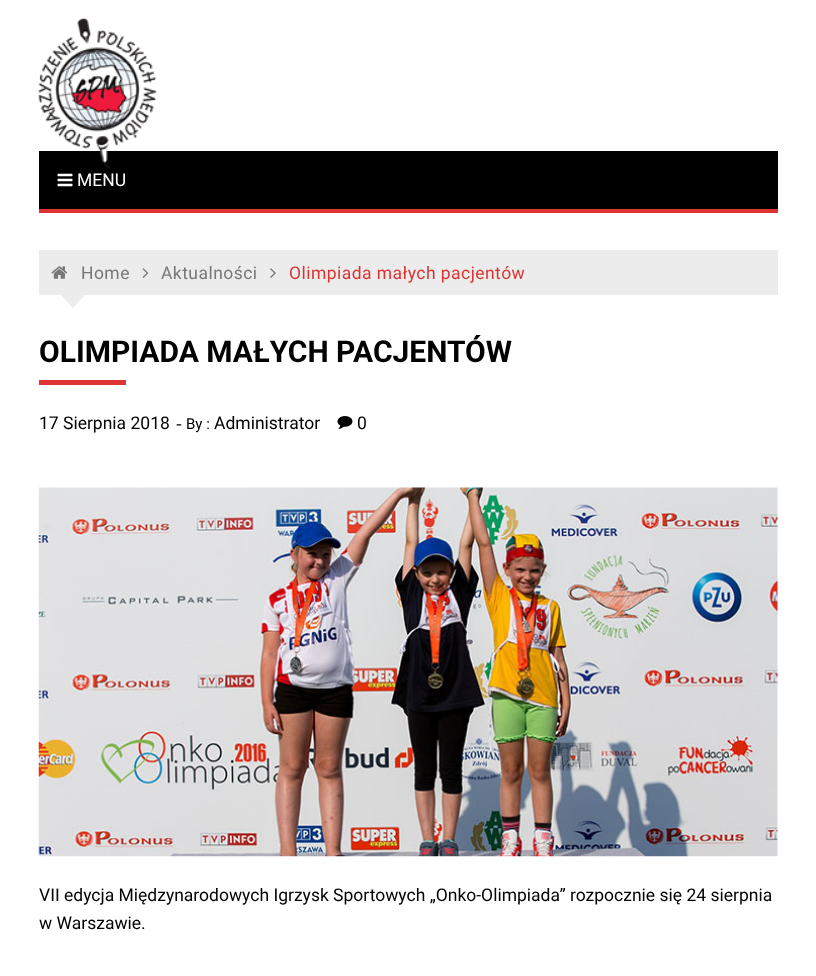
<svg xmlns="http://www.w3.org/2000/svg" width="816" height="976">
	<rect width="100%" height="100%" fill="#FFFFFF" />
	<rect x="39" y="151" width="739" height="58" fill="#000000" />
	<image x="38" y="18" width="119" height="151" href="assets/img1.png" />
	<rect x="39" y="209" width="739" height="4" fill="#DD3333" />
	<image x="57" y="173" width="16" height="14" href="assets/img2.png" />
	<text x="77" y="186" font-family="Roboto" font-size="17.5" fill="#FFFFFF">MENU</text>
	<rect x="39" y="250" width="739" height="45" fill="#ECECEC" />
	<image x="51" y="266" width="17" height="13" href="assets/img3.png" />
	<text x="81" y="279" font-family="Roboto" font-size="17.5" letter-spacing="0.45" fill="#777777">Home</text>
	<image x="142" y="268" width="7" height="10" href="assets/img4.png" />
	<text x="161" y="279" font-family="Roboto" font-size="17.5" letter-spacing="0.45" fill="#777777">Aktualności</text>
	<image x="270" y="268" width="6" height="10" href="assets/img5.png" />
	<text x="289" y="279" font-family="Roboto" font-size="17.5" letter-spacing="0.45" fill="#DD3333">Olimpiada małych pacjentów</text>
	<path d="M58 291.5H88L73 308Z" fill="#ECECEC" />
	<text x="39" y="362" font-family="Roboto" font-size="30" font-weight="700" fill="#010101">OLIMPIADA MAŁYCH PACJENTÓW</text>
	<rect x="39" y="380" width="87" height="5" fill="#DD3333" />
	<text x="39" y="429" font-family="Roboto" font-size="17.5" fill="#010101">17 Sierpnia 2018</text>
	<text x="176" y="429" font-family="Liberation Serif" font-size="17.5" fill="#010101">-</text>
	<text x="186" y="429" font-family="Roboto" font-size="15" fill="#010101">By :</text>
	<text x="214" y="429" font-family="Roboto" font-size="17.5" fill="#010101">Administrator</text>
	<image x="337" y="416" width="16" height="13" href="assets/img6.png" />
	<text x="357" y="429" font-family="Roboto" font-size="17.5" fill="#010101">0</text>
	<image x="38" y="487" width="740" height="370" href="assets/img7.png" />
	<g font-family="Roboto" font-size="17.5" fill="#010101">
		<text x="39" y="901">VII edycja Międzynarodowych Igrzysk Sportowych „Onko-Olimpiada” rozpocznie się 24 sierpnia</text>
		<text x="39" y="929">w Warszawie.</text>
	</g>
</svg>
